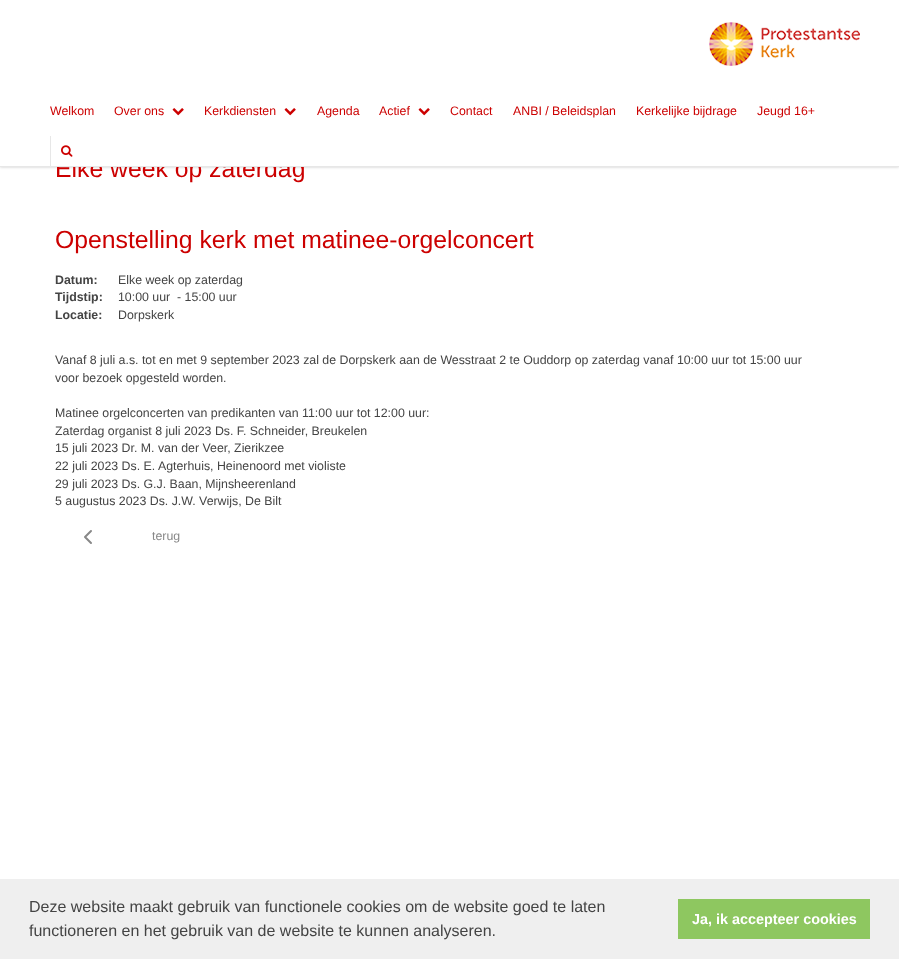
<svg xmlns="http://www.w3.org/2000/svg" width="899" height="959">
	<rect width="100%" height="100%" fill="#FFFFFF" />
	<rect x="0" y="0" width="899" height="167" fill="#000000" fill-opacity="0.22" filter="blur(1.5px)" />
	<text x="55" y="177" font-family="Liberation Sans" font-size="24.75" fill="#CC0000">Elke week op zaterdag</text>
	<rect x="0" y="0" width="899" height="166" fill="#FFFFFF" />
	<rect x="0" y="166" width="899" height="1" fill="#E7E7E7" />
	<image x="709" y="22" width="151" height="44" href="assets/img1.png" />
	<g font-family="Liberation Sans" font-size="12.35" fill="#CC0000">
		<text x="50" y="115">Welkom</text>
		<text x="114" y="115">Over ons</text>
	</g>
	<image x="172" y="108" width="12" height="8" href="assets/img2.png" />
	<text x="204" y="115" font-family="Liberation Sans" font-size="12.35" fill="#CC0000">Kerkdiensten</text>
	<image x="284" y="108" width="12" height="8" href="assets/img2.png" />
	<g font-family="Liberation Sans" font-size="12.35" fill="#CC0000">
		<text x="317" y="115">Agenda</text>
		<text x="379" y="115">Actief</text>
	</g>
	<image x="418" y="108" width="12" height="8" href="assets/img2.png" />
	<g font-family="Liberation Sans" font-size="12.35" fill="#CC0000">
		<text x="450" y="115">Contact</text>
		<text x="513" y="115">ANBI / Beleidsplan</text>
		<text x="636" y="115">Kerkelijke bijdrage</text>
		<text x="757" y="115">Jeugd 16+</text>
	</g>
	<rect x="50" y="136" width="1" height="30" fill="#E7E7E7" />
	<image x="61" y="145" width="12" height="12" href="assets/img3.png" />
	<text x="55" y="248" font-family="Liberation Sans" font-size="24.75" fill="#CC0000">Openstelling kerk met matinee-orgelconcert</text>
	<text x="55" y="284" font-family="Liberation Sans" font-size="12.35" font-weight="700" fill="#444444">Datum:</text>
	<text x="118" y="284" font-family="Liberation Sans" font-size="12.35" fill="#444444">Elke week op zaterdag</text>
	<text x="55" y="301" font-family="Liberation Sans" font-size="12.35" font-weight="700" fill="#444444">Tijdstip:</text>
	<g font-family="Liberation Sans" font-size="12.35" fill="#444444">
		<text x="118" y="301">10:00 uur</text>
		<text x="177" y="301">- 15:00 uur</text>
	</g>
	<text x="55" y="319" font-family="Liberation Sans" font-size="12.35" font-weight="700" fill="#444444">Locatie:</text>
	<g font-family="Liberation Sans" font-size="12.35" fill="#444444">
		<text x="118" y="319">Dorpskerk</text>
		<text x="55" y="364">Vanaf 8 juli a.s. tot en met 9 september 2023 zal de Dorpskerk aan de Wesstraat 2 te Ouddorp op zaterdag vanaf 10:00 uur tot 15:00 uur</text>
		<text x="55" y="382">voor bezoek opgesteld worden.</text>
		<text x="55" y="417">Matinee orgelconcerten van predikanten van 11:00 uur tot 12:00 uur:</text>
		<text x="55" y="435">Zaterdag organist 8 juli 2023 Ds. F. Schneider, Breukelen</text>
		<text x="55" y="452">15 juli 2023 Dr. M. van der Veer, Zierikzee</text>
		<text x="55" y="470">22 juli 2023 Ds. E. Agterhuis, Heinenoord met violiste</text>
		<text x="55" y="488">29 juli 2023 Ds. G.J. Baan, Mijnsheerenland</text>
		<text x="55" y="505">5 augustus 2023 Ds. J.W. Verwijs, De Bilt</text>
	</g>
	<path d="M91 543L85 537L91 531" fill="none" stroke="#888888" stroke-width="2" stroke-linecap="round" stroke-linejoin="round" />
	<text x="152" y="540" font-family="Liberation Sans" font-size="12.35" fill="#888888">terug</text>
	<rect x="0" y="879" width="899" height="80" fill="#EFEFEF" />
	<g font-family="Liberation Sans" font-size="16" fill="#444444">
		<text x="29" y="912">Deze website maakt gebruik van functionele cookies om de website goed te laten</text>
		<text x="29" y="936">functioneren en het gebruik van de website te kunnen analyseren.</text>
	</g>
	<rect x="678" y="899" width="192" height="40" fill="#8EC760" />
	<text x="692" y="924" font-family="Liberation Sans" font-size="14.4" font-weight="700" fill="#FFFFFF">Ja, ik accepteer cookies</text>
</svg>
